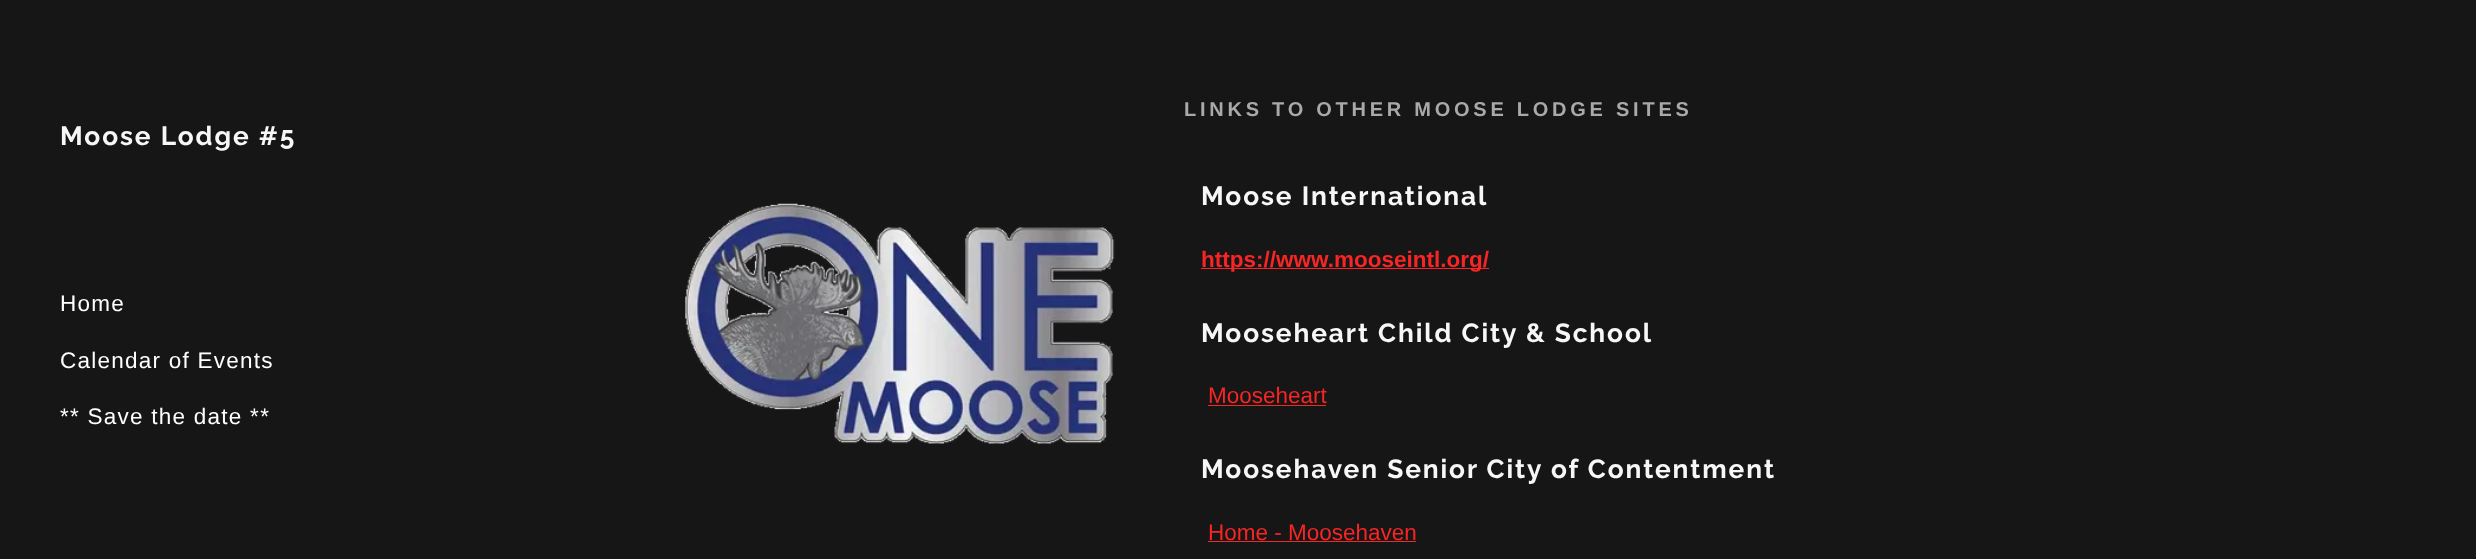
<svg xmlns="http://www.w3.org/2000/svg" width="2476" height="559">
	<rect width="100%" height="100%" fill="#161616" />
	<text x="60" y="145" font-family="Raleway" font-size="26.25" font-weight="700" letter-spacing="1.9" fill="#F7F7F7">Moose Lodge #5</text>
	<g font-family="Liberation Sans" font-size="22.5" letter-spacing="1.25" fill="#FFFFFF">
		<text x="60" y="311">Home</text>
		<text x="60" y="368">Calendar of Events</text>
		<text x="60" y="424">** Save the date **</text>
	</g>
	<text x="1184" y="116" font-family="Liberation Sans" font-size="20" font-weight="700" letter-spacing="3.75" fill="#A9A9A9">LINKS TO OTHER MOOSE LODGE SITES</text>
	<image x="685" y="203" width="430" height="241" href="assets/img1.png" />
	<text x="1201" y="205" font-family="Raleway" font-size="26.25" font-weight="700" letter-spacing="1.9" fill="#F7F7F7">Moose International</text>
	<rect x="1201" y="268" width="288" height="1" fill="#F72525" />
	<text x="1201" y="267" font-family="Liberation Sans" font-size="22.5" font-weight="700" fill="#F72525">https://www.mooseintl.org/</text>
	<text x="1201" y="342" font-family="Raleway" font-size="26.25" font-weight="700" letter-spacing="1.9" fill="#F7F7F7">Mooseheart Child City &amp; School</text>
	<text x="1208" y="403" font-family="Liberation Sans" font-size="22.5" fill="#F72525">Mooseheart</text>
	<rect x="1208" y="405" width="118" height="1" fill="#F72525" />
	<text x="1201" y="478" font-family="Raleway" font-size="26.25" font-weight="700" letter-spacing="1.9" fill="#F7F7F7">Moosehaven Senior City of Contentment</text>
	<text x="1208" y="540" font-family="Liberation Sans" font-size="22.5" fill="#F72525">Home - Moosehaven</text>
	<rect x="1208" y="541" width="208" height="1" fill="#F72525" />
</svg>
